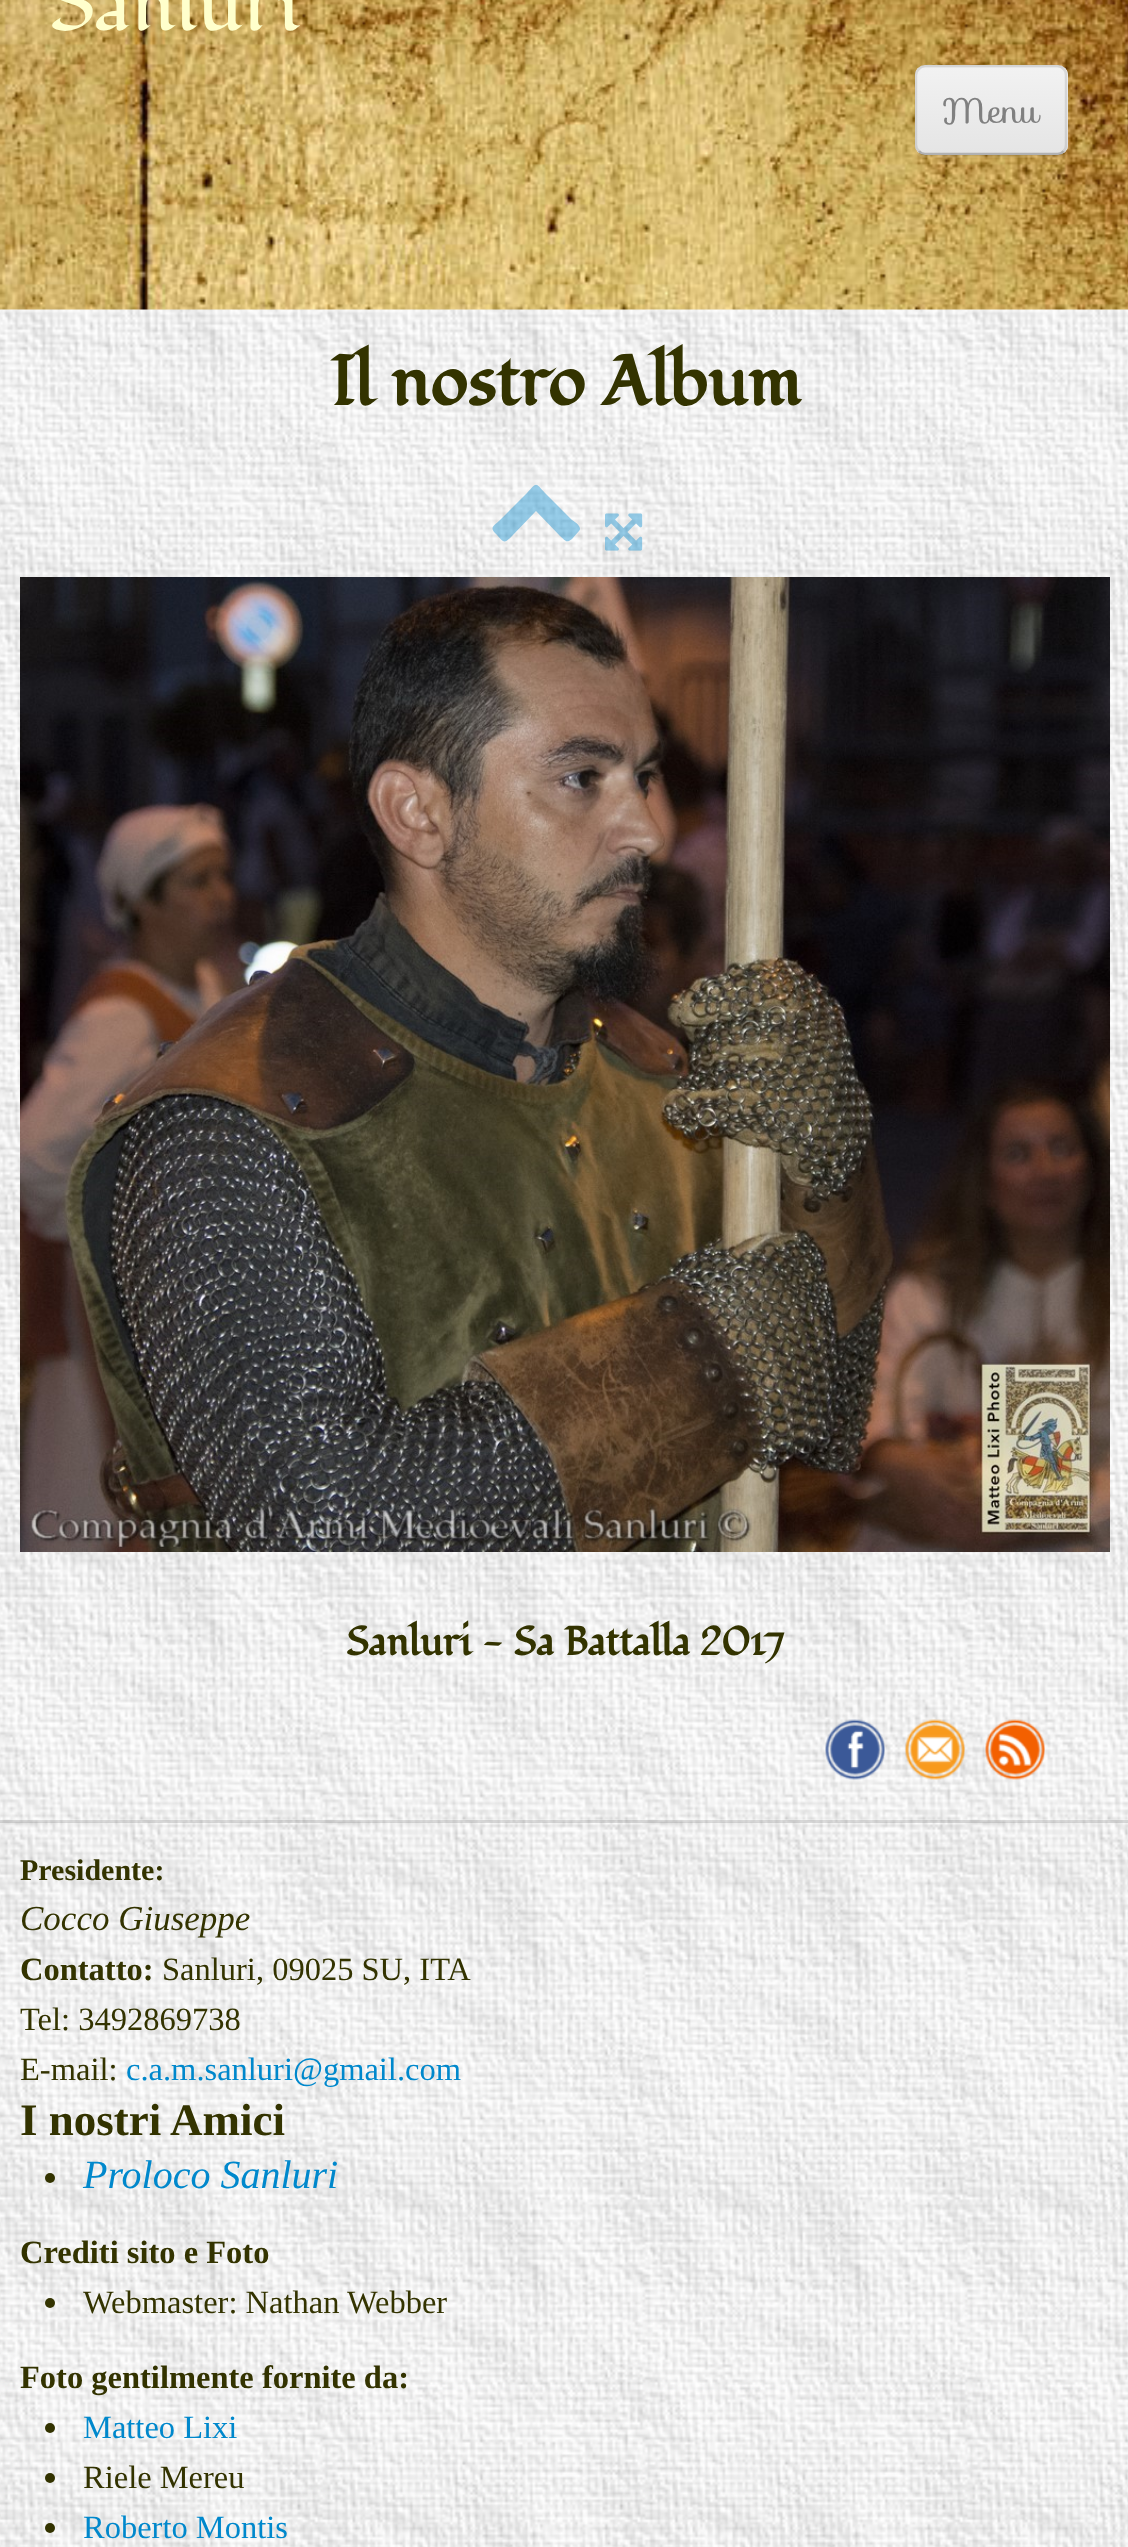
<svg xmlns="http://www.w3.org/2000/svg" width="1128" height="2547">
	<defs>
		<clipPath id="clip1"><rect x="915" y="65" width="153" height="90" rx="10" /></clipPath>
		<linearGradient id="g1" gradientUnits="userSpaceOnUse" x1="991" y1="67" x2="991" y2="153"><stop offset="0" stop-color="#F2F2F2" /><stop offset="1" stop-color="#E5E5E5" /></linearGradient>
	</defs>
	<rect width="100%" height="100%" fill="#FFFFFF" />
	<image x="0" y="309" width="1128" height="2238" href="assets/img1.png" />
	<image x="0" y="0" width="1128" height="310" href="assets/img2.png" />
	<text x="50" y="30" font-family="Fondamento" font-size="80" fill="#FFFFCC">Sanluri</text>
	<path d="M915 145V148C915 154 919 158 925 158H1058C1064 158 1068 154 1068 148V78L1067 75L1068 145C1068 151 1063 155 1058 155H925C919 155 915 151 915 145Z" fill="#FFFFFF" fill-opacity="0.07" />
	<rect x="915" y="65" width="153" height="90" rx="10" fill="#EDEDED" />
	<g clip-path="url(#clip1)">
		<rect x="915" y="68" width="153" height="85" fill="url(#g1)" />
	</g>
	<path d="M1063.5 151C1062 153 1060 154 1057.5 154H925C922.5 154 920.5 153 919 151" fill="none" stroke="#000000" stroke-opacity="0.25" stroke-width="2.5" />
	<path d="M919 151C917 149.5 916 147.5 916 145V75C916 72.5 917 70.5 919 69C920.5 67 922.5 66 925 66H1057.5C1060 66 1062 67 1063.5 69C1065.5 70.5 1066 72.5 1066 75V145C1066 147.5 1065.5 149.5 1063.5 151" fill="none" stroke="#000000" stroke-opacity="0.1" stroke-width="2.5" />
	<text x="942" y="123" font-family="Sofia" font-size="35" fill="#808080">Menu</text>
	<text x="330" y="405" font-family="Fondamento" font-size="70" font-weight="700" fill="#333300">Il nostro Album</text>
	<path d="M579 531L572 539C566 544 565 540 560 536L536 511L512 536C503 545 504 542 495 533C489 527 495 525 500 520L527 493C537 482 535 482 545 493L572 520C574 521 583 527 579 531Z" fill="#0088CC" fill-opacity="0.4" />
	<image x="605" y="513" width="38" height="38" href="assets/img3.png" />
	<image x="20" y="577" width="1090" height="975" href="assets/img4.png" />
	<text x="346" y="1655" font-family="Fondamento" font-size="40" font-weight="700" fill="#333300">Sanluri - Sa Battalla 2017</text>
	<image x="825" y="1719" width="60" height="61" href="assets/img5.png" />
	<image x="905" y="1719" width="60" height="61" href="assets/img6.png" />
	<image x="985" y="1719" width="60" height="61" href="assets/img7.png" />
	<rect x="0" y="1820" width="1128" height="3" fill="#000000" fill-opacity="0.13" />
	<text x="20" y="1880" font-family="Liberation Serif" font-size="30" font-weight="700" fill="#333300">Presidente:</text>
	<text x="20" y="1930" font-family="Liberation Serif" font-size="35" font-style="italic" fill="#333300">Cocco Giuseppe</text>
	<text x="20" y="1980" font-family="Liberation Serif" font-size="32.5" font-weight="700" fill="#333300">Contatto:</text>
	<g font-family="Liberation Serif" font-size="32.5" fill="#333300">
		<text x="162" y="1980">Sanluri, 09025 SU, ITA</text>
		<text x="20" y="2030">Tel: 3492869738</text>
		<text x="20" y="2080">E-mail:</text>
	</g>
	<text x="126" y="2080" font-family="Liberation Serif" font-size="32.5" fill="#0088CC">c.a.m.sanluri@gmail.com</text>
	<text x="20" y="2135" font-family="Liberation Serif" font-size="45" font-weight="700" fill="#333300">I nostri Amici</text>
	<circle cx="50" cy="2178" r="5" fill="#333300" />
	<text x="83" y="2188" font-family="Liberation Serif" font-size="40" font-style="italic" fill="#0088CC">Proloco Sanluri</text>
	<text x="20" y="2263" font-family="Liberation Serif" font-size="32.5" font-weight="700" fill="#333300">Crediti sito e Foto</text>
	<circle cx="50" cy="2303" r="5" fill="#333300" />
	<text x="83" y="2313" font-family="Liberation Serif" font-size="32.5" fill="#333300">Webmaster: Nathan Webber</text>
	<text x="20" y="2388" font-family="Liberation Serif" font-size="32.5" font-weight="700" fill="#333300">Foto gentilmente fornite da:</text>
	<circle cx="50" cy="2428" r="5" fill="#333300" />
	<text x="83" y="2438" font-family="Liberation Serif" font-size="32.5" fill="#0088CC">Matteo Lixi</text>
	<circle cx="50" cy="2478" r="5" fill="#333300" />
	<text x="83" y="2488" font-family="Liberation Serif" font-size="32.5" fill="#333300">Riele Mereu</text>
	<circle cx="50" cy="2528" r="5" fill="#333300" />
	<text x="83" y="2538" font-family="Liberation Serif" font-size="32.5" fill="#0088CC">Roberto Montis</text>
</svg>
